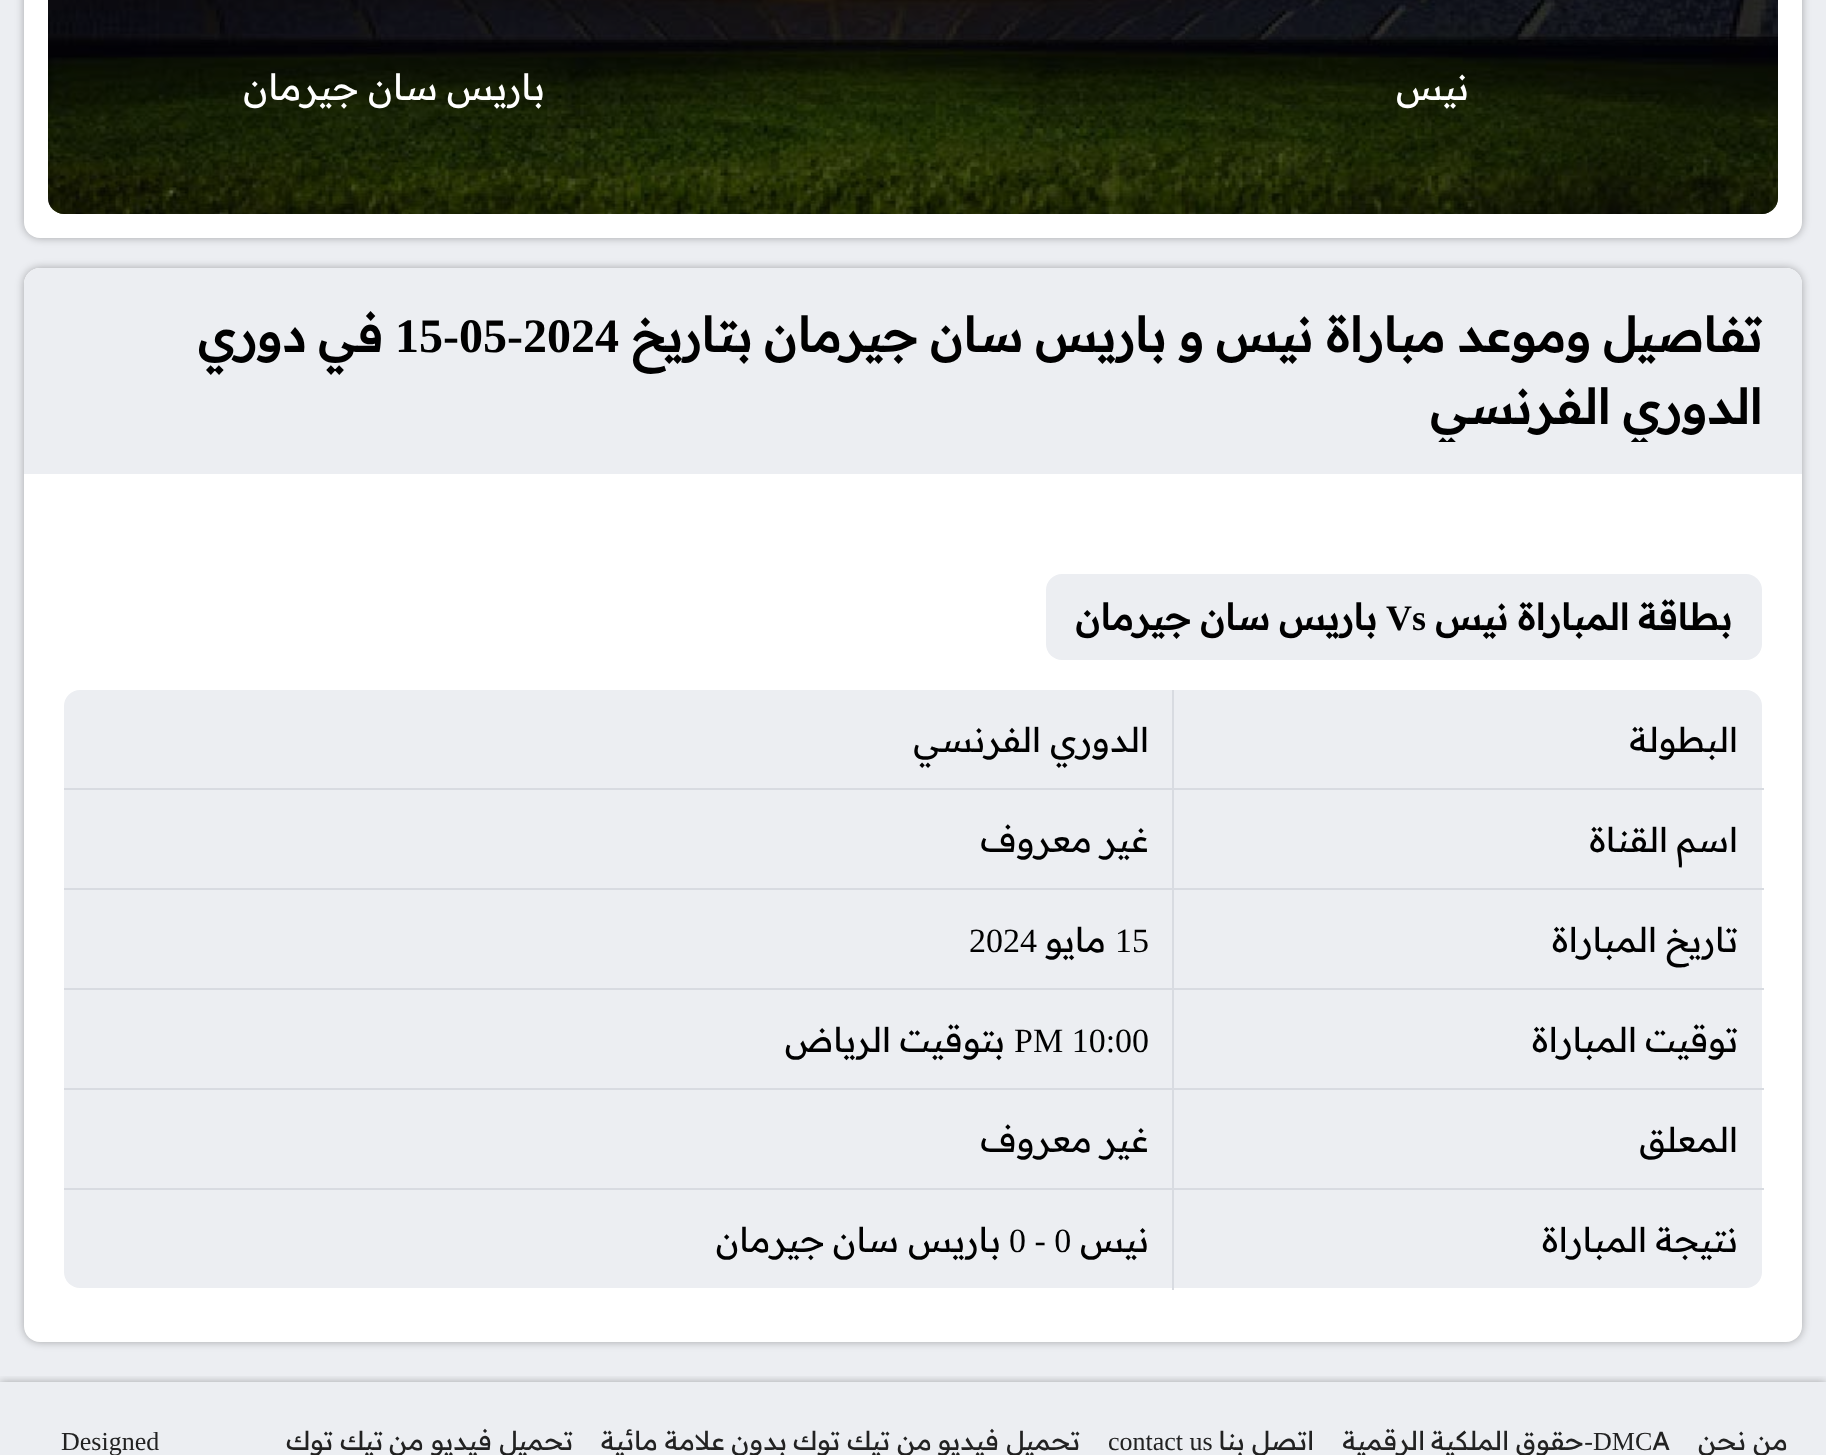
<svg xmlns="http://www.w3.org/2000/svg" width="1826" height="1455">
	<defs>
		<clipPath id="clip1"><rect x="64" y="298" width="1698" height="144" /></clipPath>
		<clipPath id="clip2"><rect x="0" y="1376" width="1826" height="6" /></clipPath>
	</defs>
	<rect width="100%" height="100%" fill="#ECEEF2" />
	<rect x="24" y="-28" width="1778" height="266" rx="16" fill="#000000" fill-opacity="0.3" filter="blur(4px)" />
	<rect x="24" y="-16" width="1778" height="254" rx="16" fill="#FFFFFF" />
	<image x="48" y="0" width="1730" height="214" href="assets/img1.png" />
	<rect x="48" y="-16" width="1730" height="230" rx="16" fill="#000000" fill-opacity="0.59" />
	<g font-family="Readex Pro" font-size="36" direction="rtl" fill="#FFFFFF">
		<text x="1469" y="100">نيس</text>
		<text x="545" y="100">باريس</text>
		<text x="438" y="100">سان</text>
		<text x="359" y="100">جيرمان</text>
	</g>
	<rect x="24" y="268" width="1778" height="1074" rx="16" fill="#000000" fill-opacity="0.3" filter="blur(4px)" />
	<rect x="24" y="268" width="1778" height="1074" rx="16" fill="#FFFFFF" />
	<path d="M40 268H1786C1795 268 1802 275 1802 284V474H24V284C24 275 31 268 40 268Z" fill="#ECEEF2" />
	<g font-family="Readex Pro" font-size="48" font-weight="700" direction="rtl" fill="#000000">
		<text x="1762" y="352">تفاصيل</text>
		<text x="1591" y="352">وموعد</text>
		<text x="1445" y="352">مباراة</text>
		<text x="1313" y="352">نيس</text>
		<text x="1204" y="352">و</text>
		<text x="1166" y="352">باريس</text>
		<text x="1023" y="352">سان</text>
		<text x="918" y="352">جيرمان</text>
		<text x="752" y="352">بتاريخ</text>
	</g>
	<text x="395" y="352" font-family="Liberation Serif" font-size="48" font-weight="700" fill="#000000">15-05-2024</text>
	<g font-family="Readex Pro" font-size="48" font-weight="700" direction="rtl" fill="#000000">
		<text x="383" y="352">في</text>
		<text x="306" y="352">دوري</text>
	</g>
	<g clip-path="url(#clip1)">
		<g font-family="Readex Pro" font-size="48" font-weight="700" direction="rtl" fill="#000000">
			<text x="1762" y="424">الدوري</text>
			<text x="1610" y="424">الفرنسي</text>
		</g>
	</g>
	<rect x="1046" y="574" width="716" height="86" rx="16" fill="#ECEEF2" />
	<g font-family="Readex Pro" font-size="36" font-weight="700" direction="rtl" fill="#000000">
		<text x="1732" y="630">بطاقة</text>
		<text x="1629" y="630">المباراة</text>
		<text x="1508" y="630">نيس</text>
	</g>
	<text x="1386" y="630" font-family="Liberation Serif" font-size="36" font-weight="700" fill="#000000">Vs</text>
	<g font-family="Readex Pro" font-size="36" font-weight="700" direction="rtl" fill="#000000">
		<text x="1377" y="630">باريس</text>
		<text x="1270" y="630">سان</text>
		<text x="1191" y="630">جيرمان</text>
	</g>
	<rect x="64" y="690" width="1698" height="598" rx="16" fill="#ECEEF2" />
	<rect x="64" y="788" width="1700" height="2" fill="#D8DBE1" />
	<g font-family="Readex Pro" font-size="34" direction="rtl" fill="#000000">
		<text x="1738" y="752">البطولة</text>
		<text x="1149" y="752">الدوري</text>
		<text x="1041" y="752">الفرنسي</text>
	</g>
	<rect x="64" y="888" width="1700" height="2" fill="#D8DBE1" />
	<g font-family="Readex Pro" font-size="34" direction="rtl" fill="#000000">
		<text x="1738" y="852">اسم</text>
		<text x="1668" y="852">القناة</text>
		<text x="1149" y="852">غير</text>
		<text x="1092" y="852">معروف</text>
	</g>
	<rect x="64" y="988" width="1700" height="2" fill="#D8DBE1" />
	<g font-family="Readex Pro" font-size="34" direction="rtl" fill="#000000">
		<text x="1738" y="952">تاريخ</text>
		<text x="1657" y="952">المباراة</text>
	</g>
	<text x="1115" y="952" font-family="Liberation Serif" font-size="34" fill="#000000">15</text>
	<text x="1106" y="952" font-family="Readex Pro" font-size="34" direction="rtl" fill="#000000">مايو</text>
	<text x="969" y="952" font-family="Liberation Serif" font-size="34" fill="#000000">2024</text>
	<rect x="64" y="1088" width="1700" height="2" fill="#D8DBE1" />
	<g font-family="Readex Pro" font-size="34" direction="rtl" fill="#000000">
		<text x="1738" y="1052">توقيت</text>
		<text x="1637" y="1052">المباراة</text>
	</g>
	<text x="1014" y="1052" font-family="Liberation Serif" font-size="34" fill="#000000">PM 10:00</text>
	<g font-family="Readex Pro" font-size="34" direction="rtl" fill="#000000">
		<text x="1005" y="1052">بتوقيت</text>
		<text x="891" y="1052">الرياض</text>
	</g>
	<rect x="64" y="1188" width="1700" height="2" fill="#D8DBE1" />
	<g font-family="Readex Pro" font-size="34" direction="rtl" fill="#000000">
		<text x="1738" y="1152">المعلق</text>
		<text x="1149" y="1152">غير</text>
		<text x="1092" y="1152">معروف</text>
		<text x="1738" y="1252">نتيجة</text>
		<text x="1647" y="1252">المباراة</text>
	</g>
	<rect x="1172" y="690" width="2" height="600" fill="#D8DBE1" />
	<text x="1149" y="1252" font-family="Readex Pro" font-size="34" direction="rtl" fill="#000000">نيس</text>
	<text x="1009" y="1252" font-family="Liberation Serif" font-size="34" fill="#000000">0 - 0</text>
	<g font-family="Readex Pro" font-size="34" direction="rtl" fill="#000000">
		<text x="1001" y="1252">باريس</text>
		<text x="899" y="1252">سان</text>
		<text x="825" y="1252">جيرمان</text>
	</g>
	<g clip-path="url(#clip2)">
		<rect x="0" y="1382" width="1826" height="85" fill="#000000" fill-opacity="0.3" filter="blur(4px)" />
	</g>
	<g font-family="Readex Pro" font-size="26" direction="rtl" fill="#222222">
		<text x="1788" y="1450">من</text>
		<text x="1746" y="1450">نحن</text>
	</g>
	<text x="1652" y="1450" font-family="Readex Pro" font-size="26" fill="#222222">A</text>
	<text x="1593" y="1450" font-family="Liberation Serif" font-size="26" fill="#222222">DMC</text>
	<text x="1593" y="1450" font-family="Liberation Serif" font-size="26" direction="rtl" fill="#222222">-</text>
	<g font-family="Readex Pro" font-size="26" direction="rtl" fill="#222222">
		<text x="1584" y="1450">حقوق</text>
		<text x="1509" y="1450">الملكية</text>
		<text x="1425" y="1450">الرقمية</text>
		<text x="1314" y="1450">اتصل</text>
		<text x="1245" y="1450">بنا</text>
	</g>
	<text x="1108" y="1450" font-family="Liberation Serif" font-size="26" fill="#222222">contact us</text>
	<g font-family="Readex Pro" font-size="26" direction="rtl" fill="#222222">
		<text x="1080" y="1450">تحميل</text>
		<text x="999" y="1450">فيديو</text>
		<text x="932" y="1450">من</text>
		<text x="890" y="1450">تيك</text>
		<text x="840" y="1450">توك</text>
		<text x="787" y="1450">بدون</text>
		<text x="725" y="1450">علامة</text>
		<text x="658" y="1450">مائية</text>
		<text x="573" y="1450">تحميل</text>
		<text x="492" y="1450">فيديو</text>
		<text x="424" y="1450">من</text>
		<text x="383" y="1450">تيك</text>
		<text x="333" y="1450">توك</text>
	</g>
	<text x="61" y="1450" font-family="Liberation Serif" font-size="26" fill="#222222">Designed</text>
</svg>
